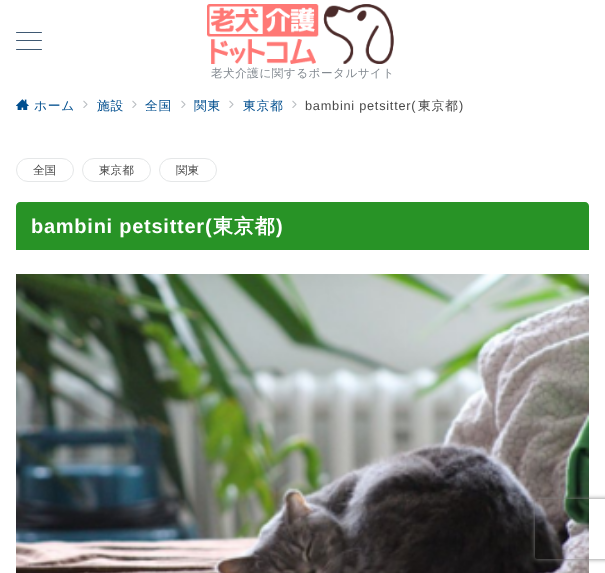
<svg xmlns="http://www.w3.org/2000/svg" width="605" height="573">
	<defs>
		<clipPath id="clip1"><path d="M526 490H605V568H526ZM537 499H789C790 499 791 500 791 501V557C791 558 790 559 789 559H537C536 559 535 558 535 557V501C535 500 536 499 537 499Z" clip-rule="evenodd" /></clipPath>
	</defs>
	<rect width="100%" height="100%" fill="#FFFFFF" />
	<rect x="16" y="32" width="26" height="1" rx="0.5" fill="#3F5973" />
	<rect x="16" y="40" width="26" height="1" rx="0.5" fill="#3F5973" />
	<rect x="16" y="49" width="26" height="1" rx="0.5" fill="#3F5973" />
	<image x="207" y="4" width="187" height="60" href="assets/img1.png" />
	<text x="211" y="77" font-family="WenQuanYi Zen Hei" font-size="11.6" font-weight="500" letter-spacing="0.5" fill="#828990">老犬介護に関するポータルサイト</text>
	<image x="16" y="99" width="13" height="11" href="assets/img2.png" />
	<text x="34" y="110" font-family="WenQuanYi Zen Hei" font-size="12.75" font-weight="500" letter-spacing="0.75" fill="#004E8E">ホーム</text>
	<image x="83" y="100" width="5" height="8" href="assets/img3.png" />
	<text x="97" y="110" font-family="WenQuanYi Zen Hei" font-size="12.75" font-weight="500" letter-spacing="0.75" fill="#004E8E">施設</text>
	<image x="132" y="100" width="5" height="8" href="assets/img3.png" />
	<text x="145" y="110" font-family="WenQuanYi Zen Hei" font-size="12.75" font-weight="500" letter-spacing="0.75" fill="#004E8E">全国</text>
	<image x="181" y="100" width="5" height="8" href="assets/img3.png" />
	<text x="194" y="110" font-family="WenQuanYi Zen Hei" font-size="12.75" font-weight="500" letter-spacing="0.75" fill="#004E8E">関東</text>
	<image x="229" y="100" width="5" height="8" href="assets/img3.png" />
	<text x="243" y="110" font-family="WenQuanYi Zen Hei" font-size="12.75" font-weight="500" letter-spacing="0.75" fill="#004E8E">東京都</text>
	<image x="292" y="100" width="5" height="8" href="assets/img3.png" />
	<text x="305" y="110" font-family="Liberation Sans" font-size="12.75" letter-spacing="0.75" fill="#484848">bambini petsitter(</text>
	<text x="418" y="110" font-family="WenQuanYi Zen Hei" font-size="12.75" font-weight="500" letter-spacing="0.75" fill="#484848">東京都</text>
	<text x="459" y="110" font-family="Liberation Sans" font-size="12.75" letter-spacing="0.75" fill="#484848">)</text>
	<rect x="16.5" y="158.5" width="57" height="23" rx="11.5" fill="none" stroke="#E5E7E8" />
	<text x="33" y="174" font-family="WenQuanYi Zen Hei" font-size="11.6" font-weight="500" fill="#484848">全国</text>
	<rect x="82.5" y="158.5" width="68" height="23" rx="11.5" fill="none" stroke="#E5E7E8" />
	<text x="99" y="174" font-family="WenQuanYi Zen Hei" font-size="11.6" font-weight="500" fill="#484848">東京都</text>
	<rect x="159.5" y="158.5" width="57" height="23" rx="11.5" fill="none" stroke="#E5E7E8" />
	<text x="176" y="174" font-family="WenQuanYi Zen Hei" font-size="11.6" font-weight="500" fill="#484848">関東</text>
	<path d="M20 202H585C587 202 589 204 589 206V250H16V206C16 204 18 202 20 202Z" fill="#289326" />
	<text x="31" y="233" font-family="Liberation Sans" font-size="20" font-weight="700" letter-spacing="0.75" fill="#FFFFFF">bambini petsitter(</text>
	<text x="213" y="233" font-family="WenQuanYi Zen Hei" font-size="20" font-weight="700" letter-spacing="0.75" fill="#FFFFFF">東京都</text>
	<text x="276" y="233" font-family="Liberation Sans" font-size="20" font-weight="700" letter-spacing="0.75" fill="#FFFFFF">)</text>
	<image x="16" y="274" width="573" height="299" href="assets/img4.png" />
	<g clip-path="url(#clip1)">
		<rect x="535" y="499" width="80" height="60" rx="2" fill="#808080" filter="blur(2.5px)" />
	</g>
</svg>
